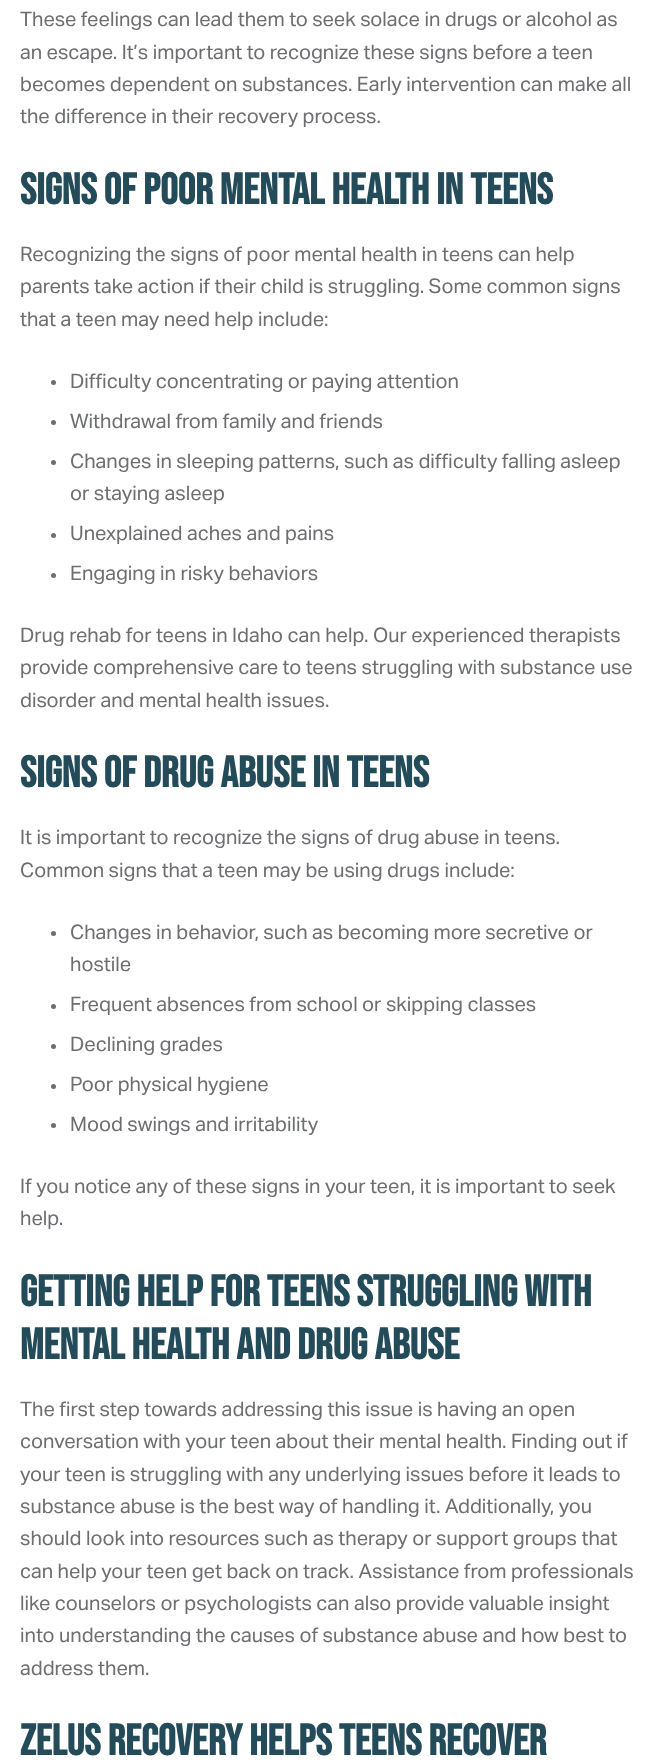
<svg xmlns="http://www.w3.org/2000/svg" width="657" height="1763">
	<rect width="100%" height="100%" fill="#FFFFFF" />
	<g font-family="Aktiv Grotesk" font-size="20" fill="#6D6E71">
		<text x="20" y="26">These feelings can lead them to seek solace in drugs or alcohol as</text>
		<text x="20" y="59">an escape. It’s important to recognize these signs before a teen</text>
		<text x="20" y="91">becomes dependent on substances. Early intervention can make all</text>
		<text x="20" y="123">the difference in their recovery process.</text>
	</g>
	<text x="20" y="204" font-family="Bebas Neue" font-size="43.75" font-weight="700" fill="#244B5A">Signs of Poor Mental Health in Teens</text>
	<g font-family="Aktiv Grotesk" font-size="20" fill="#6D6E71">
		<text x="20" y="261">Recognizing the signs of poor mental health in teens can help</text>
		<text x="20" y="293">parents take action if their child is struggling. Some common signs</text>
		<text x="20" y="326">that a teen may need help include:</text>
	</g>
	<circle cx="53.5" cy="382.5" r="2.5" fill="#6D6E71" />
	<text x="70" y="388" font-family="Aktiv Grotesk" font-size="20" fill="#6D6E71">Difficulty concentrating or paying attention</text>
	<circle cx="53.5" cy="422.5" r="2.5" fill="#6D6E71" />
	<text x="70" y="428" font-family="Aktiv Grotesk" font-size="20" fill="#6D6E71">Withdrawal from family and friends</text>
	<circle cx="53.5" cy="462.5" r="2.5" fill="#6D6E71" />
	<g font-family="Aktiv Grotesk" font-size="20" fill="#6D6E71">
		<text x="70" y="468">Changes in sleeping patterns, such as difficulty falling asleep</text>
		<text x="70" y="500">or staying asleep</text>
	</g>
	<circle cx="53.5" cy="535.5" r="2.5" fill="#6D6E71" />
	<text x="70" y="540" font-family="Aktiv Grotesk" font-size="20" fill="#6D6E71">Unexplained aches and pains</text>
	<circle cx="53.5" cy="575.5" r="2.5" fill="#6D6E71" />
	<g font-family="Aktiv Grotesk" font-size="20" fill="#6D6E71">
		<text x="70" y="580">Engaging in risky behaviors</text>
		<text x="20" y="642">Drug rehab for teens in Idaho can help. Our experienced therapists</text>
		<text x="20" y="674">provide comprehensive care to teens struggling with substance use</text>
		<text x="20" y="707">disorder and mental health issues.</text>
	</g>
	<text x="20" y="787" font-family="Bebas Neue" font-size="43.75" font-weight="700" fill="#244B5A">Signs of Drug Abuse in Teens</text>
	<g font-family="Aktiv Grotesk" font-size="20" fill="#6D6E71">
		<text x="20" y="844">It is important to recognize the signs of drug abuse in teens.</text>
		<text x="20" y="877">Common signs that a teen may be using drugs include:</text>
	</g>
	<circle cx="53.5" cy="933.5" r="2.5" fill="#6D6E71" />
	<g font-family="Aktiv Grotesk" font-size="20" fill="#6D6E71">
		<text x="70" y="939">Changes in behavior, such as becoming more secretive or</text>
		<text x="70" y="971">hostile</text>
	</g>
	<circle cx="53.5" cy="1006.5" r="2.5" fill="#6D6E71" />
	<text x="70" y="1011" font-family="Aktiv Grotesk" font-size="20" fill="#6D6E71">Frequent absences from school or skipping classes</text>
	<circle cx="53.5" cy="1046.5" r="2.5" fill="#6D6E71" />
	<text x="70" y="1051" font-family="Aktiv Grotesk" font-size="20" fill="#6D6E71">Declining grades</text>
	<circle cx="53.5" cy="1086.5" r="2.5" fill="#6D6E71" />
	<text x="70" y="1091" font-family="Aktiv Grotesk" font-size="20" fill="#6D6E71">Poor physical hygiene</text>
	<circle cx="53.5" cy="1125.5" r="2.5" fill="#6D6E71" />
	<g font-family="Aktiv Grotesk" font-size="20" fill="#6D6E71">
		<text x="70" y="1131">Mood swings and irritability</text>
		<text x="20" y="1193">If you notice any of these signs in your teen, it is important to seek</text>
		<text x="20" y="1225">help.</text>
	</g>
	<g font-family="Bebas Neue" font-size="43.75" font-weight="700" fill="#244B5A">
		<text x="20" y="1306">Getting Help for Teens Struggling with</text>
		<text x="20" y="1359">Mental Health and Drug Abuse</text>
	</g>
	<g font-family="Aktiv Grotesk" font-size="20" fill="#6D6E71">
		<text x="20" y="1416">The first step towards addressing this issue is having an open</text>
		<text x="20" y="1448">conversation with your teen about their mental health. Finding out if</text>
		<text x="20" y="1481">your teen is struggling with any underlying issues before it leads to</text>
		<text x="20" y="1513">substance abuse is the best way of handling it. Additionally, you</text>
		<text x="20" y="1545">should look into resources such as therapy or support groups that</text>
		<text x="20" y="1578">can help your teen get back on track. Assistance from professionals</text>
		<text x="20" y="1610">like counselors or psychologists can also provide valuable insight</text>
		<text x="20" y="1642">into understanding the causes of substance abuse and how best to</text>
		<text x="20" y="1675">address them.</text>
	</g>
	<text x="20" y="1755" font-family="Bebas Neue" font-size="43.75" font-weight="700" fill="#244B5A">Zelus Recovery Helps Teens Recover</text>
</svg>
